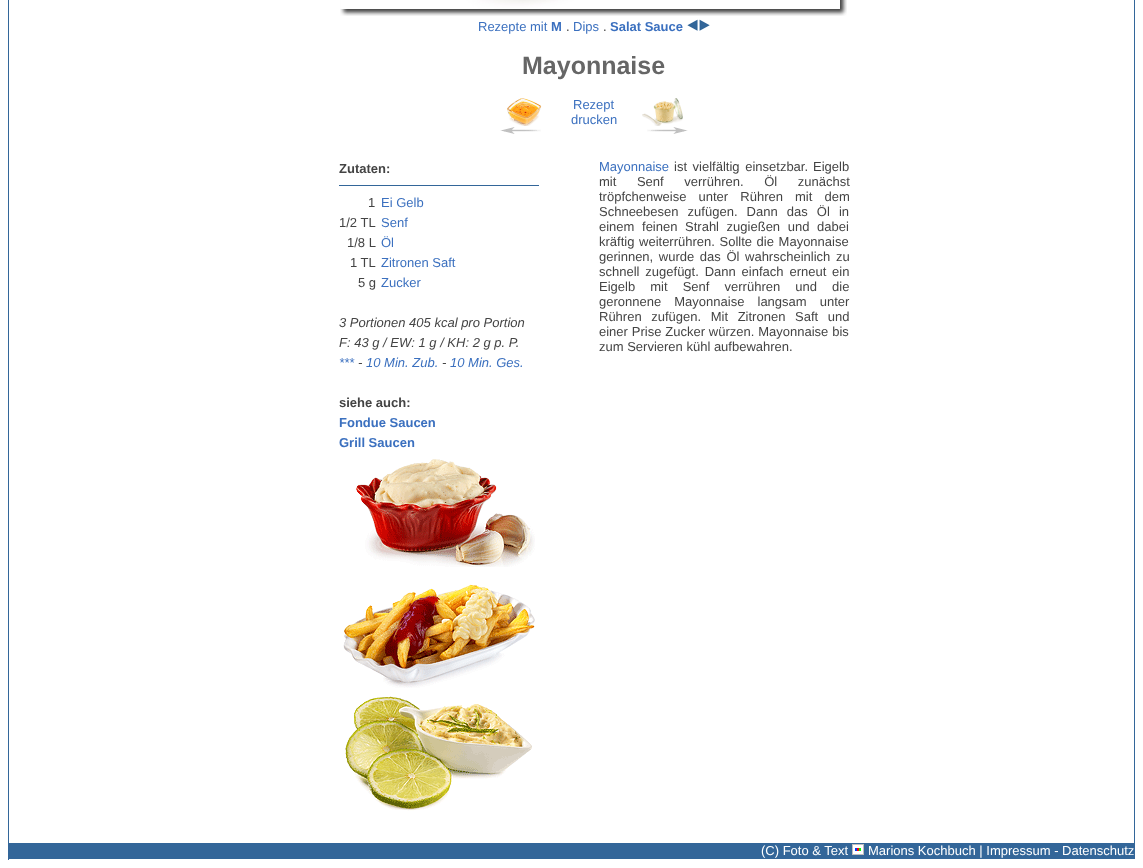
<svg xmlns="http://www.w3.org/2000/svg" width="1143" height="868">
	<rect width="100%" height="100%" fill="#FFFFFF" />
	<rect x="1134" y="0" width="1" height="860" fill="#336699" />
	<rect x="1134" y="859" width="1" height="1" fill="#FFFFFF" />
	<rect x="8" y="0" width="1" height="860" fill="#336699" />
	<image x="340" y="0" width="507" height="16" href="assets/img1.png" />
	<text x="478" y="31" font-family="Liberation Sans" font-size="13" fill="#3B70BF">Rezepte mit</text>
	<text x="551" y="31" font-family="Liberation Sans" font-size="13" font-weight="700" fill="#3B70BF">M</text>
	<text x="566" y="31" font-family="Liberation Sans" font-size="13" fill="#444444">.</text>
	<text x="573" y="31" font-family="Liberation Sans" font-size="13" fill="#3B70BF">Dips</text>
	<text x="603" y="31" font-family="Liberation Sans" font-size="13" fill="#444444">.</text>
	<text x="610" y="31" font-family="Liberation Sans" font-size="13" font-weight="700" fill="#3B70BF">Salat Sauce</text>
	<image x="687" y="19" width="23" height="12" href="assets/img2.png" />
	<text x="522" y="74" font-family="Liberation Sans" font-size="25" font-weight="700" fill="#666666">Mayonnaise</text>
	<image x="507" y="98" width="35" height="28" href="assets/img3.png" />
	<image x="500" y="127" width="41" height="7" href="assets/img4.png" />
	<g font-family="Liberation Sans" font-size="13" fill="#3B70BF">
		<text x="573" y="109">Rezept</text>
		<text x="571" y="124">drucken</text>
	</g>
	<image x="642" y="98" width="41" height="28" href="assets/img5.png" />
	<image x="647" y="127" width="41" height="7" href="assets/img6.png" />
	<text x="339" y="173" font-family="Liberation Sans" font-size="13" font-weight="700" fill="#444444">Zutaten:</text>
	<rect x="339" y="185" width="200" height="1" fill="#336699" />
	<g font-family="Liberation Sans" font-size="13" fill="#444444">
		<text x="368" y="207">1</text>
		<text x="339" y="227">1/2 TL</text>
		<text x="347" y="247">1/8 L</text>
		<text x="350" y="267">1 TL</text>
		<text x="358" y="287">5 g</text>
	</g>
	<g font-family="Liberation Sans" font-size="13" fill="#3B70BF">
		<text x="381" y="207">Ei Gelb</text>
		<text x="381" y="227">Senf</text>
		<text x="381" y="247">Öl</text>
		<text x="381" y="267">Zitronen Saft</text>
		<text x="381" y="287">Zucker</text>
	</g>
	<g font-family="Liberation Sans" font-size="13" font-style="italic" fill="#444444">
		<text x="339" y="327">3 Portionen 405 kcal pro Portion</text>
		<text x="339" y="347">F: 43 g / EW: 1 g / KH: 2 g p. P.</text>
	</g>
	<g font-family="Liberation Sans" font-size="13" font-style="italic" fill="#3B70BF">
		<text x="339" y="367">***</text>
		<text x="366" y="367">10 Min. Zub.</text>
		<text x="450" y="367">10 Min. Ges.</text>
	</g>
	<g font-family="Liberation Sans" font-size="13" font-style="italic" fill="#444444">
		<text x="358" y="367">-</text>
		<text x="442" y="367">-</text>
	</g>
	<text x="339" y="407" font-family="Liberation Sans" font-size="13" font-weight="700" fill="#444444">siehe auch:</text>
	<g font-family="Liberation Sans" font-size="13" font-weight="700" fill="#3B70BF">
		<text x="339" y="427">Fondue Saucen</text>
		<text x="339" y="447">Grill Saucen</text>
	</g>
	<image x="356" y="459" width="179" height="108" href="assets/img7.png" />
	<image x="343" y="584" width="192" height="104" href="assets/img8.png" />
	<image x="345" y="696" width="187" height="115" href="assets/img9.png" />
	<text x="599" y="171" font-family="Liberation Sans" font-size="13" fill="#3B70BF">Mayonnaise</text>
	<g font-family="Liberation Sans" font-size="13" fill="#444444">
		<text x="674" y="171" word-spacing="2">ist vielfältig einsetzbar.</text>
		<text x="813" y="171">Eigelb</text>
		<text x="599" y="186" word-spacing="17">mit Senf verrühren. Öl zunächst</text>
		<text x="599" y="201" word-spacing="8.5">tröpfchenweise unter Rühren mit dem</text>
		<text x="599" y="216" word-spacing="5.5">Schneebesen zufügen. Dann das Öl in</text>
		<text x="599" y="231" word-spacing="4">einem feinen Strahl zugießen und dabei</text>
		<text x="599" y="246" word-spacing="1">kräftig weiterrühren. Sollte die Mayonnaise</text>
		<text x="599" y="261" word-spacing="2">gerinnen, wurde das Öl wahrscheinlich zu</text>
		<text x="599" y="276" word-spacing="2.25">schnell zugefügt. Dann einfach erneut ein</text>
		<text x="599" y="291" word-spacing="11.5">Eigelb mit Senf verrühren und die</text>
		<text x="599" y="306" word-spacing="9.5">geronnene Mayonnaise langsam unter</text>
		<text x="599" y="321" word-spacing="6">Rühren zufügen. Mit Zitronen Saft und</text>
		<text x="599" y="336" word-spacing="0.25">einer Prise Zucker würzen. Mayonnaise bis</text>
		<text x="599" y="351">zum Servieren kühl aufbewahren.</text>
	</g>
	<rect x="9" y="843" width="1125" height="16" fill="#336699" />
	<text x="761" y="855" font-family="Liberation Sans" font-size="13" fill="#FFFFFF">(C) Foto &amp; Text</text>
	<image x="852" y="844" width="12" height="11" href="assets/img10.png" />
	<text x="868" y="855" font-family="Liberation Sans" font-size="13" fill="#FFFFFF">Marions Kochbuch | Impressum - Datenschutz</text>
</svg>
